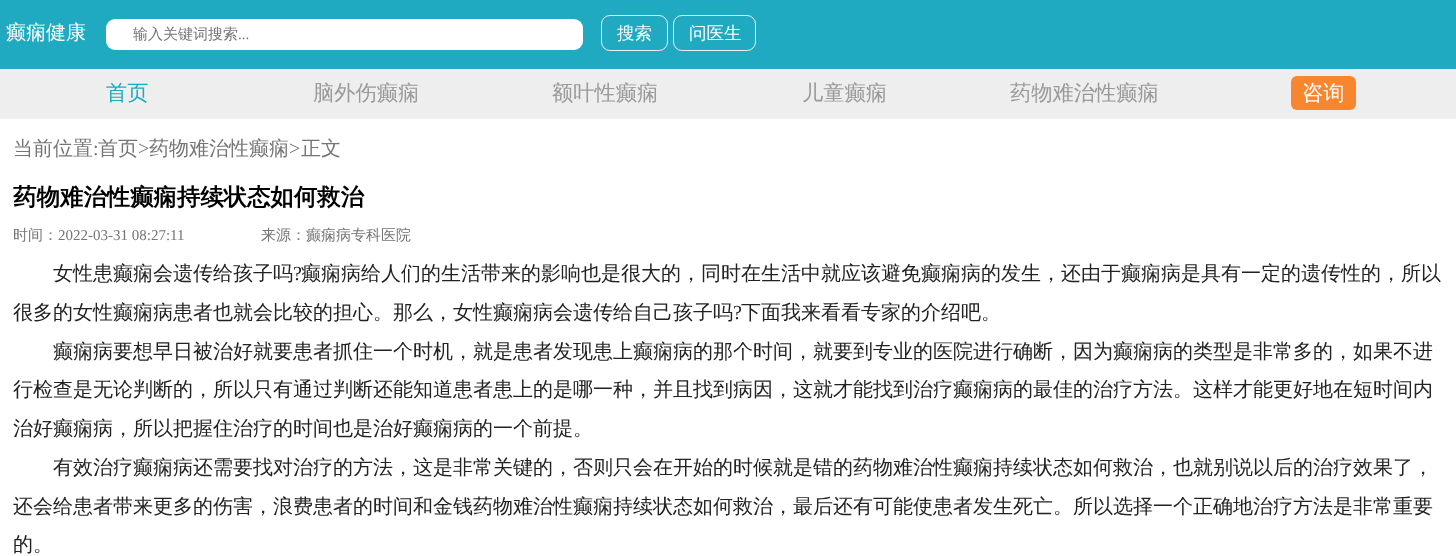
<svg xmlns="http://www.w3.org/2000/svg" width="1456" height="556">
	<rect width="100%" height="100%" fill="#FFFFFF" />
	<rect x="0" y="0" width="1456" height="69" fill="#1FAAC1" />
	<text x="6" y="39" font-family="WenQuanYi Zen Hei" font-size="20" font-weight="500" fill="#FFFFFF">癫痫健康</text>
	<rect x="106" y="19" width="477" height="31" rx="9" fill="#FFFFFF" />
	<text x="133" y="39" font-family="WenQuanYi Zen Hei" font-size="15" font-weight="500" fill="#757575">输入关键词搜索</text>
	<text x="238" y="39" font-family="Liberation Serif" font-size="15" fill="#757575">...</text>
	<rect x="601.5" y="15.5" width="66" height="35" rx="8.5" fill="none" stroke="#EEEEEE" />
	<text x="617" y="39" font-family="WenQuanYi Zen Hei" font-size="17.5" font-weight="500" fill="#FFFFFF">搜索</text>
	<rect x="673.5" y="15.5" width="82" height="35" rx="8.5" fill="none" stroke="#EEEEEE" />
	<text x="689" y="39" font-family="WenQuanYi Zen Hei" font-size="17.5" font-weight="500" fill="#FFFFFF">问医生</text>
	<rect x="0" y="69" width="1456" height="50" fill="#EEEEEE" />
	<text x="106" y="100" font-family="WenQuanYi Zen Hei" font-size="21.25" font-weight="500" fill="#1FAAC1">首页</text>
	<g font-family="WenQuanYi Zen Hei" font-size="21.25" font-weight="500" fill="#999999">
		<text x="313" y="100">脑外伤癫痫</text>
		<text x="552" y="100">额叶性癫痫</text>
		<text x="802" y="100">儿童癫痫</text>
		<text x="1010" y="100">药物难治性癫痫</text>
	</g>
	<rect x="1291" y="76" width="65" height="34" rx="6" fill="#F8862E" />
	<text x="1302" y="100" font-family="WenQuanYi Zen Hei" font-size="21.25" font-weight="500" fill="#FFFFFF">咨询</text>
	<text x="13" y="155" font-family="WenQuanYi Zen Hei" font-size="20" font-weight="500" fill="#757575">当前位置</text>
	<text x="93" y="155" font-family="Liberation Serif" font-size="20" fill="#757575">:</text>
	<text x="98" y="155" font-family="WenQuanYi Zen Hei" font-size="20" font-weight="500" fill="#757575">首页</text>
	<text x="138" y="155" font-family="Liberation Serif" font-size="20" fill="#757575">&gt;</text>
	<text x="149" y="155" font-family="WenQuanYi Zen Hei" font-size="20" font-weight="500" fill="#757575">药物难治性癫痫</text>
	<text x="289" y="155" font-family="Liberation Serif" font-size="20" fill="#757575">&gt;</text>
	<text x="301" y="155" font-family="WenQuanYi Zen Hei" font-size="20" font-weight="500" fill="#757575">正文</text>
	<text x="13" y="205" font-family="WenQuanYi Zen Hei" font-size="23.4" font-weight="700" fill="#000000">药物难治性癫痫持续状态如何救治</text>
	<text x="13" y="240" font-family="WenQuanYi Zen Hei" font-size="15" font-weight="500" fill="#757575">时间：</text>
	<text x="58" y="240" font-family="Liberation Serif" font-size="15" fill="#757575">2022-03-31 08:27:11</text>
	<text x="261" y="240" font-family="WenQuanYi Zen Hei" font-size="15" font-weight="500" fill="#757575">来源：癫痫病专科医院</text>
	<text x="53" y="280" font-family="WenQuanYi Zen Hei" font-size="20" font-weight="500" fill="#222222">女性患癫痫会遗传给孩子吗</text>
	<text x="293" y="280" font-family="Liberation Serif" font-size="20" fill="#222222">?</text>
	<g font-family="WenQuanYi Zen Hei" font-size="20" font-weight="500" fill="#222222">
		<text x="301" y="280">癫痫病给人们的生活带来的影响也是很大的，同时在生活中就应该避免癫痫病的发生，还由于癫痫病是具有一定的遗传性的，所以</text>
		<text x="13" y="319">很多的女性癫痫病患者也就会比较的担心。那么，女性癫痫病会遗传给自己孩子吗</text>
	</g>
	<text x="733" y="319" font-family="Liberation Serif" font-size="20" fill="#222222">?</text>
	<g font-family="WenQuanYi Zen Hei" font-size="20" font-weight="500" fill="#222222">
		<text x="741" y="319">下面我来看看专家的介绍吧。</text>
		<text x="53" y="358">癫痫病要想早日被治好就要患者抓住一个时机，就是患者发现患上癫痫病的那个时间，就要到专业的医院进行确断，因为癫痫病的类型是非常多的，如果不进</text>
		<text x="13" y="396">行检查是无论判断的，所以只有通过判断还能知道患者患上的是哪一种，并且找到病因，这就才能找到治疗癫痫病的最佳的治疗方法。这样才能更好地在短时间内</text>
		<text x="13" y="435">治好癫痫病，所以把握住治疗的时间也是治好癫痫病的一个前提。</text>
		<text x="53" y="474">有效治疗癫痫病还需要找对治疗的方法，这是非常关键的，否则只会在开始的时候就是错的药物难治性癫痫持续状态如何救治，也就别说以后的治疗效果了，</text>
		<text x="13" y="513">还会给患者带来更多的伤害，浪费患者的时间和金钱药物难治性癫痫持续状态如何救治，最后还有可能使患者发生死亡。所以选择一个正确地治疗方法是非常重要</text>
		<text x="13" y="551">的。</text>
	</g>
</svg>
